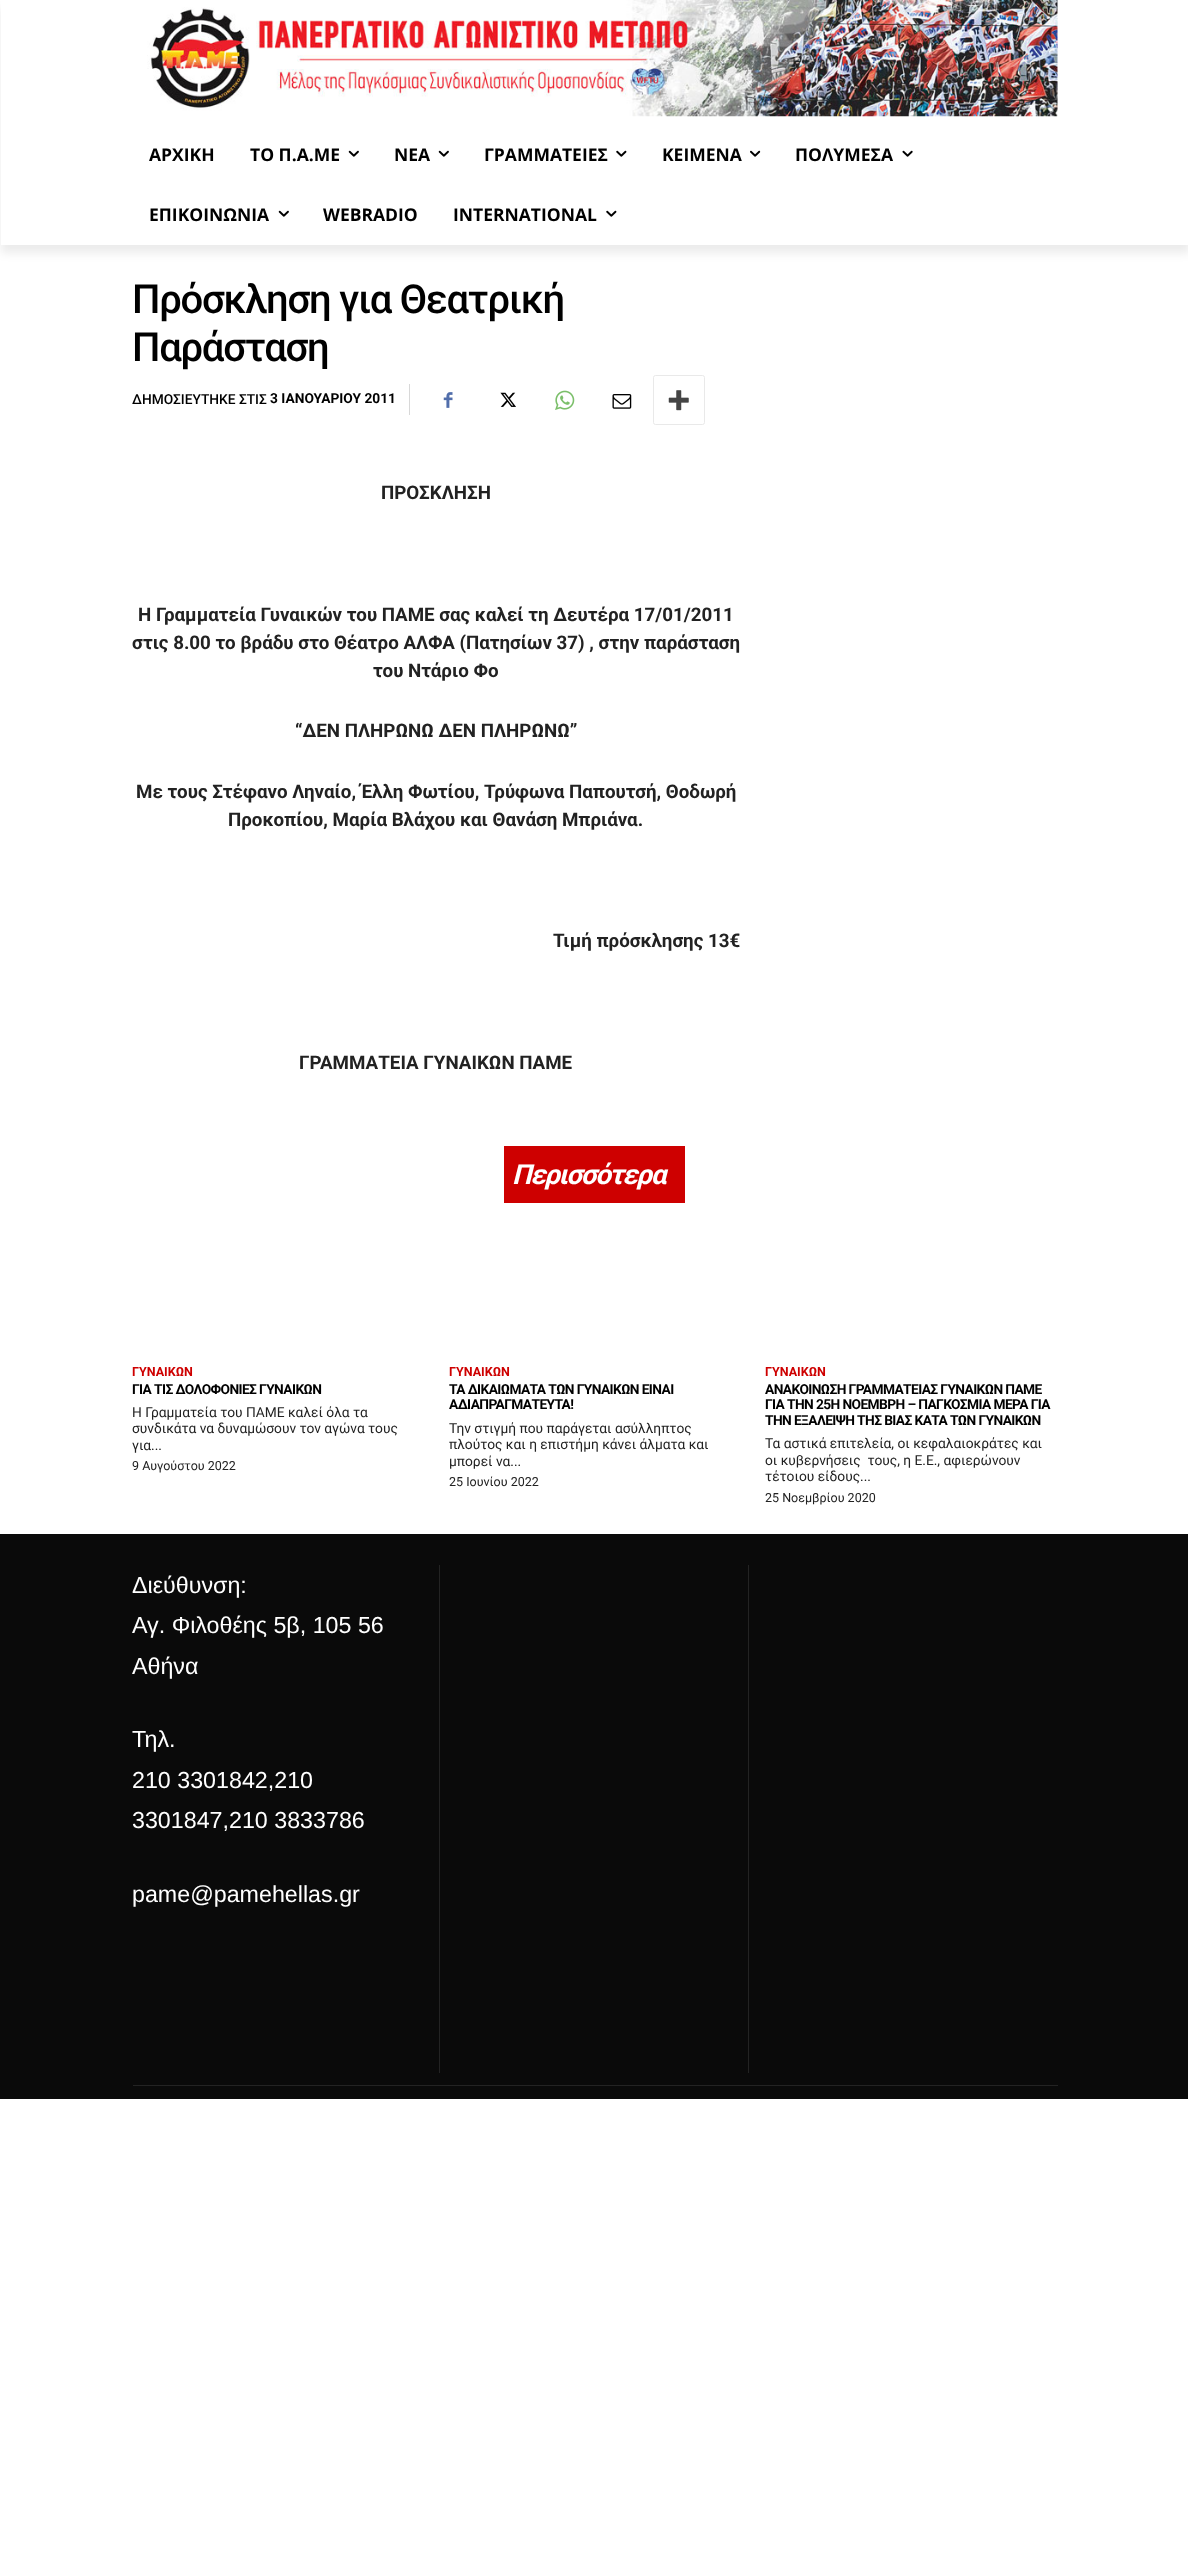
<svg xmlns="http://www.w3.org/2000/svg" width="1188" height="2562">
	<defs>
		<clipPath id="clip1"><path d="M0 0H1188V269H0ZM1 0H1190V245H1Z" clip-rule="evenodd" /></clipPath>
	</defs>
	<rect width="100%" height="100%" fill="#FFFFFF" />
	<image x="147" y="0" width="911" height="117" href="assets/img1.png" />
	<g clip-path="url(#clip1)">
		<rect x="1" y="8" width="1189" height="245" fill="#000000" fill-opacity="0.08" filter="blur(5px)" />
	</g>
	<g font-family="Open Sans" font-size="17.5" font-weight="700" fill="#000000">
		<text x="149" y="161">ΑΡΧΙΚΗ</text>
		<text x="250" y="161">ΤΟ Π.Α.ΜΕ</text>
	</g>
	<image x="348" y="150" width="11" height="7" href="assets/img2.png" />
	<text x="394" y="161" font-family="Open Sans" font-size="17.5" font-weight="700" fill="#000000">ΝΕΑ</text>
	<image x="438" y="150" width="11" height="7" href="assets/img2.png" />
	<text x="484" y="161" font-family="Open Sans" font-size="17.5" font-weight="700" fill="#000000">ΓΡΑΜΜΑΤΕΙΕΣ</text>
	<image x="616" y="150" width="11" height="7" href="assets/img3.png" />
	<text x="662" y="161" font-family="Open Sans" font-size="17.5" font-weight="700" fill="#000000">ΚΕΙΜΕΝΑ</text>
	<image x="750" y="150" width="11" height="7" href="assets/img4.png" />
	<text x="795" y="161" font-family="Open Sans" font-size="17.5" font-weight="700" fill="#000000">ΠΟΛΥΜΕΣΑ</text>
	<image x="902" y="150" width="11" height="7" href="assets/img5.png" />
	<text x="149" y="221" font-family="Open Sans" font-size="17.5" font-weight="700" fill="#000000">ΕΠΙΚΟΙΝΩΝΙΑ</text>
	<image x="278" y="210" width="11" height="7" href="assets/img2.png" />
	<g font-family="Open Sans" font-size="17.5" font-weight="700" fill="#000000">
		<text x="323" y="221">WEBRADIO</text>
		<text x="453" y="221">INTERNATIONAL</text>
	</g>
	<image x="606" y="210" width="11" height="7" href="assets/img3.png" />
	<g font-family="Roboto" font-size="40" font-weight="500" letter-spacing="-1.25" fill="#000000">
		<text x="132" y="313">Πρόσκληση για Θεατρική</text>
		<text x="132" y="361">Παράσταση</text>
	</g>
	<rect x="409" y="384" width="1" height="31" fill="#D8D8D8" />
	<text x="132" y="404" font-family="Roboto" font-size="13.75" font-weight="500" fill="#000000">ΔΗΜΟΣΙΕΥΤΗΚΕ ΣΤΙΣ</text>
	<text x="270" y="403" font-family="Roboto" font-size="13.75" font-weight="700" fill="#000000">3 ΙΑΝΟΥΑΡΙΟΥ 2011</text>
	<image x="443" y="392" width="10" height="16" href="assets/img6.png" />
	<image x="500" y="392" width="16" height="15" href="assets/img7.png" />
	<image x="555" y="390" width="20" height="20" href="assets/img8.png" />
	<image x="612" y="394" width="20" height="15" href="assets/img9.png" />
	<rect x="653.5" y="375.5" width="51" height="49" rx="2" fill="none" stroke="#E9E9E9" />
	<image x="668" y="390" width="21" height="21" href="assets/img10.png" />
	<g font-family="Roboto" font-size="18.75" font-weight="700" fill="#222222">
		<text x="381" y="499">ΠΡΟΣΚΛΗΣΗ</text>
		<text x="138" y="621">Η Γραμματεία Γυναικών του ΠΑΜΕ σας καλεί τη Δευτέρα 17/01/2011</text>
		<text x="132" y="649">στις 8.00 το βράδυ στο Θέατρο ΑΛΦΑ (Πατησίων 37) , στην παράσταση</text>
		<text x="373" y="677">του Ντάριο Φο</text>
		<text x="295" y="737">“ΔΕΝ ΠΛΗΡΩΝΩ ΔΕΝ ΠΛΗΡΩΝΩ”</text>
		<text x="136" y="798">Με τους Στέφανο Ληναίο, Έλλη Φωτίου, Τρύφωνα Παπουτσή, Θοδωρή</text>
		<text x="228" y="826">Προκοπίου, Μαρία Βλάχου και Θανάση Μπριάνα.</text>
		<text x="553" y="947">Τιμή πρόσκλησης 13€</text>
		<text x="299" y="1069">ΓΡΑΜΜΑΤΕΙΑ ΓΥΝΑΙΚΩΝ ΠΑΜΕ</text>
	</g>
	<rect x="504" y="1146" width="181" height="57" fill="#CE0000" />
	<text x="512" y="1184" font-family="Roboto" font-size="27.5" font-weight="700" font-style="italic" letter-spacing="-1.25" fill="#FFFFFF">Περισσότερα</text>
	<text x="132" y="1376" font-family="Roboto" font-size="12.5" font-weight="700" fill="#CE0000">ΓΥΝΑΙΚΩΝ</text>
	<text x="132" y="1394" font-family="Roboto" font-size="13.75" font-weight="700" letter-spacing="-0.6" fill="#000000">ΓΙΑ ΤΙΣ ΔΟΛΟΦΟΝΙΕΣ ΓΥΝΑΙΚΩΝ</text>
	<g font-family="Roboto" font-size="13.75" fill="#222222">
		<text x="132" y="1417">Η Γραμματεία του ΠΑΜΕ καλεί όλα τα</text>
		<text x="132" y="1433">συνδικάτα να δυναμώσουν τον αγώνα τους</text>
		<text x="132" y="1450">για...</text>
	</g>
	<text x="132" y="1470" font-family="Roboto" font-size="12.5" fill="#222222">9 Αυγούστου 2022</text>
	<text x="449" y="1376" font-family="Roboto" font-size="12.5" font-weight="700" fill="#CE0000">ΓΥΝΑΙΚΩΝ</text>
	<g font-family="Roboto" font-size="13.75" font-weight="700" letter-spacing="-0.6" fill="#000000">
		<text x="449" y="1394">ΤΑ ΔΙΚΑΙΩΜΑΤΑ ΤΩΝ ΓΥΝΑΙΚΩΝ ΕΙΝΑΙ</text>
		<text x="449" y="1409">ΑΔΙΑΠΡΑΓΜΑΤΕΥΤΑ!</text>
	</g>
	<g font-family="Roboto" font-size="13.75" fill="#222222">
		<text x="449" y="1433">Την στιγμή που παράγεται ασύλληπτος</text>
		<text x="449" y="1449">πλούτος και η επιστήμη κάνει άλματα και</text>
		<text x="449" y="1466">μπορεί να...</text>
	</g>
	<text x="449" y="1486" font-family="Roboto" font-size="12.5" fill="#222222">25 Ιουνίου 2022</text>
	<text x="765" y="1376" font-family="Roboto" font-size="12.5" font-weight="700" fill="#CE0000">ΓΥΝΑΙΚΩΝ</text>
	<g font-family="Roboto" font-size="13.75" font-weight="700" letter-spacing="-0.6" fill="#000000">
		<text x="765" y="1394">ΑΝΑΚΟΙΝΩΣΗ ΓΡΑΜΜΑΤΕΙΑΣ ΓΥΝΑΙΚΩΝ ΠΑΜΕ</text>
		<text x="765" y="1409">ΓΙΑ ΤΗΝ 25Η ΝΟΕΜΒΡΗ – ΠΑΓΚΟΣΜΙΑ ΜΕΡΑ ΓΙΑ</text>
		<text x="765" y="1425">ΤΗΝ ΕΞΑΛΕΙΨΗ ΤΗΣ ΒΙΑΣ ΚΑΤΑ ΤΩΝ ΓΥΝΑΙΚΩΝ</text>
	</g>
	<g font-family="Roboto" font-size="13.75" fill="#222222">
		<text x="765" y="1448">Τα αστικά επιτελεία, οι κεφαλαιοκράτες και</text>
		<text x="765" y="1465" xml:space="preserve">οι κυβερνήσεις  τους, η Ε.Ε., αφιερώνουν</text>
		<text x="765" y="1481">τέτοιου είδους...</text>
	</g>
	<text x="765" y="1502" font-family="Roboto" font-size="12.5" fill="#222222">25 Νοεμβρίου 2020</text>
	<rect x="0" y="1534" width="1188" height="565" fill="#0A0A0A" />
	<rect x="133" y="2085" width="925" height="1" fill="#232323" />
	<rect x="439" y="1565" width="1" height="508" fill="#232323" />
	<g font-family="Liberation Sans" font-size="23.25" fill="#FFFFFF">
		<text x="132" y="1593">Διεύθυνση:</text>
		<text x="132" y="1633">Αγ. Φιλοθέης 5β, 105 56</text>
		<text x="132" y="1674">Aθήνα</text>
		<text x="132" y="1747">Τηλ.</text>
		<text x="132" y="1788">210 3301842,210</text>
		<text x="132" y="1828">3301847,210 3833786</text>
		<text x="132" y="1902">pame@pamehellas.gr</text>
	</g>
	<rect x="748" y="1565" width="1" height="508" fill="#232323" />
</svg>
